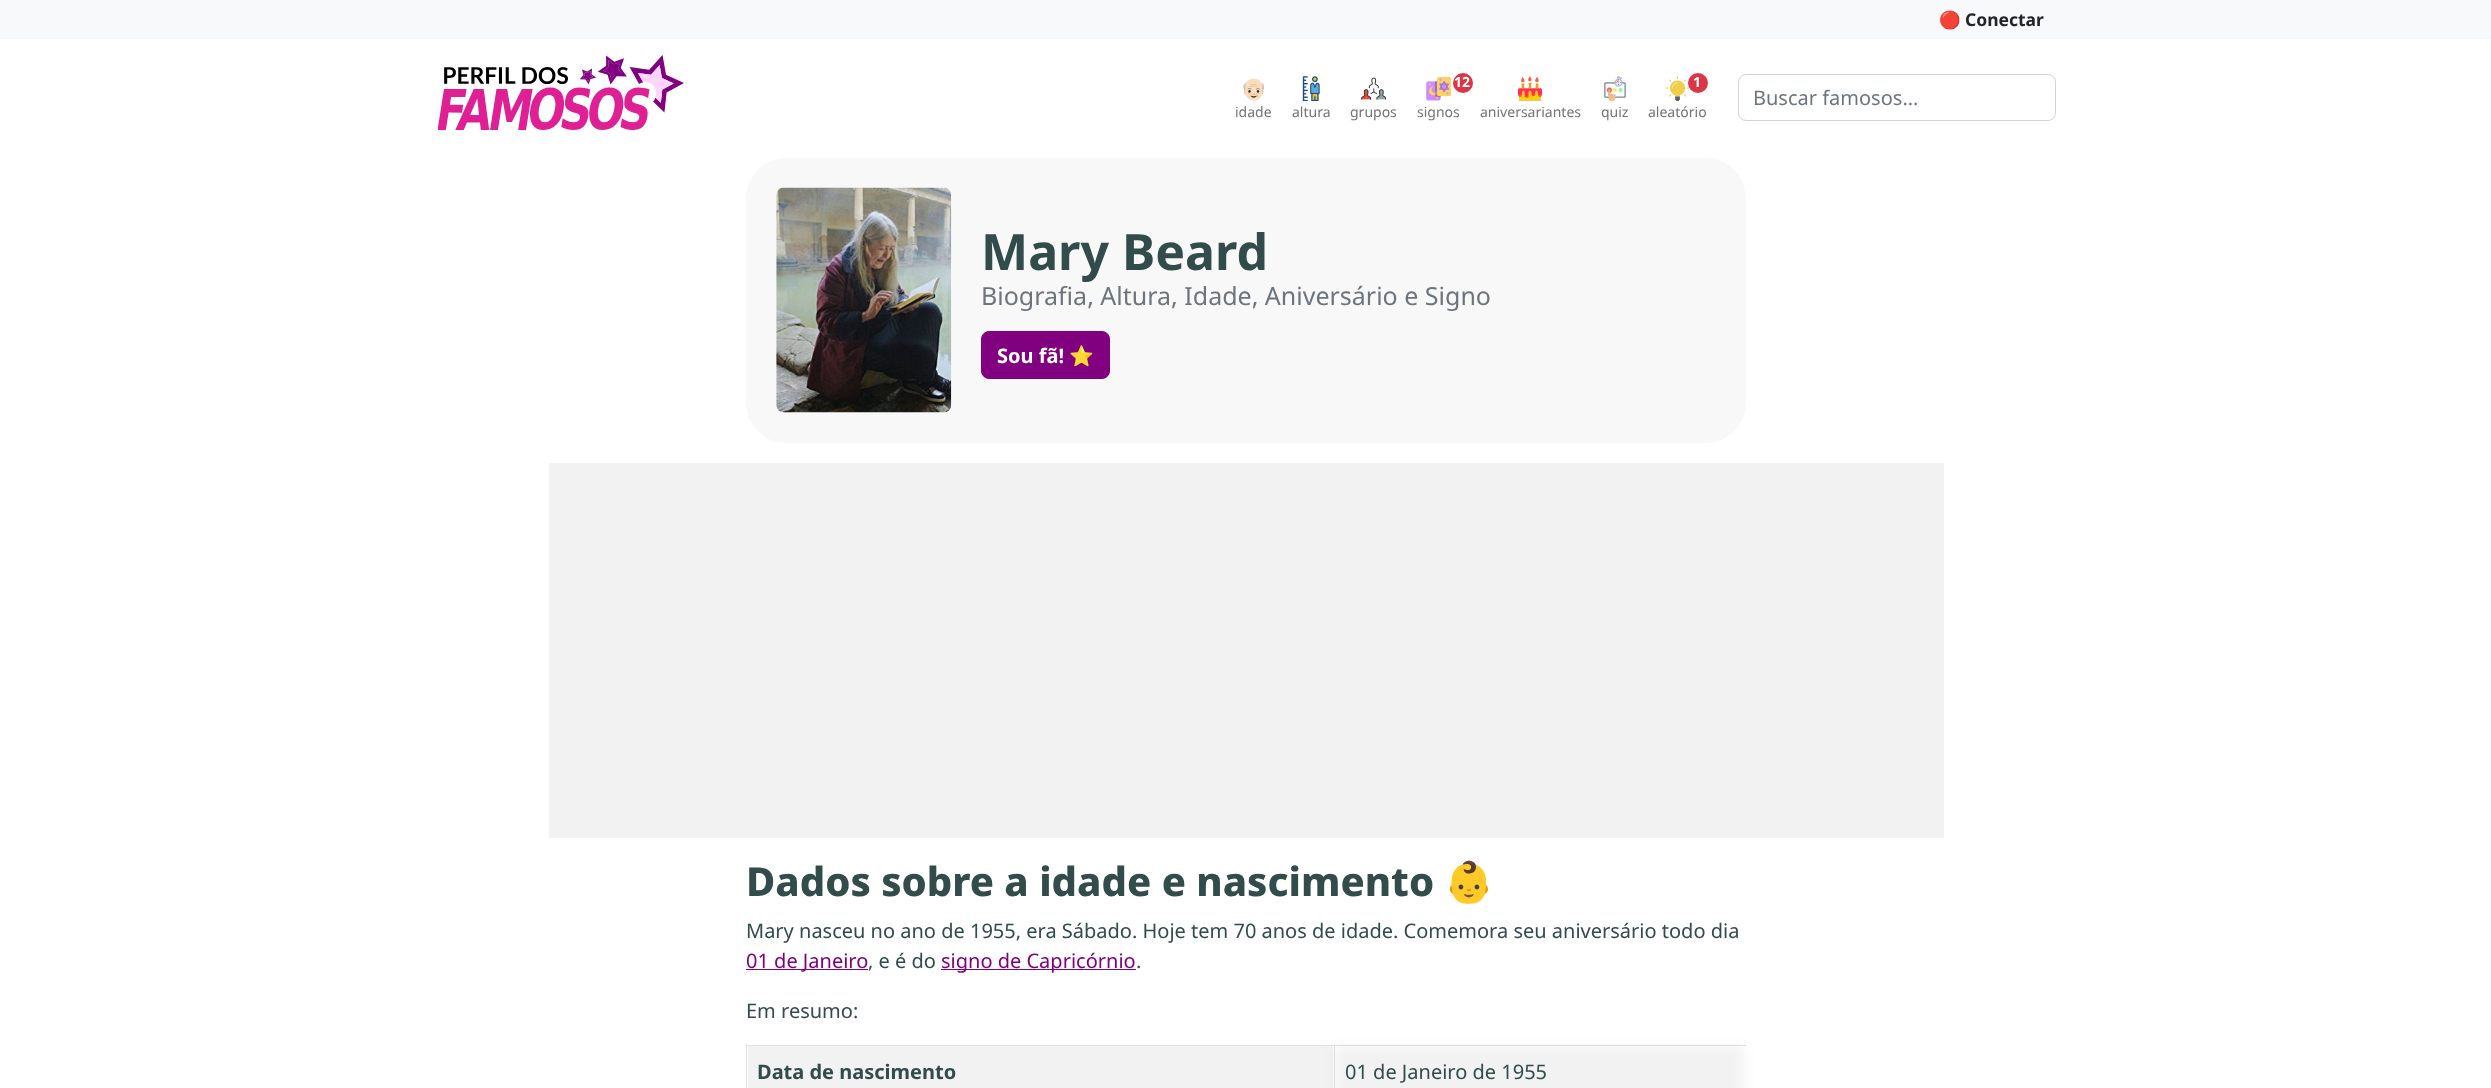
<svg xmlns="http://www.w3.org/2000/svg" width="2491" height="1088">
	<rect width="100%" height="100%" fill="#FFFFFF" />
	<rect x="0" y="0" width="2491" height="39" fill="#F8F9FA" />
	<text x="1939" y="26" font-family="Noto Color Emoji" font-size="17.5" font-weight="700" fill="#212529">🔴</text>
	<text x="1965" y="26" font-family="Noto Sans" font-size="17.5" font-weight="700" fill="#212529">Conectar</text>
	<image x="438" y="55" width="246" height="75" href="assets/img1.png" />
	<image x="1243" y="78" width="22" height="23" href="assets/img2.png" />
	<text x="1235" y="117" font-family="Noto Sans" font-size="14" fill="#737373">idade</text>
	<image x="1302" y="76" width="18" height="25" href="assets/img3.png" />
	<text x="1292" y="117" font-family="Noto Sans" font-size="14" fill="#737373">altura</text>
	<image x="1361" y="77" width="25" height="23" href="assets/img4.png" />
	<text x="1350" y="117" font-family="Noto Sans" font-size="14" fill="#737373">grupos</text>
	<image x="1426" y="77" width="25" height="24" href="assets/img5.png" />
	<circle cx="1463" cy="83" r="10" fill="#DC3545" />
	<text x="1454" y="87" font-family="Noto Sans" font-size="14" font-weight="700" fill="#FFFFFF">12</text>
	<text x="1417" y="117" font-family="Noto Sans" font-size="14" fill="#737373">signos</text>
	<image x="1518" y="76" width="25" height="25" href="assets/img6.png" />
	<text x="1480" y="117" font-family="Noto Sans" font-size="14" fill="#737373">aniversariantes</text>
	<image x="1604" y="76" width="22" height="25" href="assets/img7.png" />
	<text x="1601" y="117" font-family="Noto Sans" font-size="14" fill="#737373">quiz</text>
	<image x="1665" y="76" width="25" height="25" href="assets/img8.png" />
	<circle cx="1698" cy="83" r="10" fill="#DC3545" />
	<text x="1693" y="87" font-family="Noto Sans" font-size="14" font-weight="700" fill="#FFFFFF">1</text>
	<text x="1648" y="117" font-family="Noto Sans" font-size="14" fill="#737373">aleatório</text>
	<rect x="1738.5" y="74.5" width="317" height="46" rx="7.5" fill="none" stroke="#CED4DA" />
	<text x="1753" y="105" font-family="Noto Sans" font-size="20" fill="#6C757D">Buscar famosos...</text>
	<rect x="746" y="158" width="1000" height="285" rx="40" fill="#F8F8F8" />
	<image x="776" y="187" width="176" height="226" href="assets/img9.png" />
	<text x="981" y="270" font-family="Noto Sans" font-size="50" font-weight="700" fill="#324B4B">Mary Beard</text>
	<text x="981" y="305" font-family="Noto Sans" font-size="25" fill="#6C757D">Biografia, Altura, Idade, Aniversário e Signo</text>
	<rect x="981.5" y="331.5" width="128" height="47" rx="7.5" fill="#800080" stroke="#800080" />
	<text x="997" y="363" font-family="Noto Sans" font-size="20" font-weight="700" fill="#FFFFFF">Sou fã!</text>
	<text x="1069" y="363" font-family="Noto Color Emoji" font-size="20" font-weight="700" fill="#FFFFFF">⭐</text>
	<rect x="549" y="463" width="1395" height="375" fill="#F2F2F2" />
	<text x="746" y="896" font-family="Noto Sans" font-size="40" font-weight="800" fill="#324B4B">Dados sobre a idade e nascimento</text>
	<text x="1444" y="896" font-family="Noto Color Emoji" font-size="40" font-weight="700" fill="#324B4B">👶</text>
	<text x="746" y="938" font-family="Noto Sans" font-size="20" fill="#324B4B">Mary nasceu no ano de 1955, era Sábado. Hoje tem 70 anos de idade. Comemora seu aniversário todo dia</text>
	<rect x="746" y="969" width="122" height="1" fill="#800080" />
	<text x="746" y="968" font-family="Noto Sans" font-size="20" fill="#800080">01 de Janeiro</text>
	<text x="868" y="968" font-family="Noto Sans" font-size="20" fill="#324B4B">, e é do</text>
	<rect x="941" y="969" width="195" height="1" fill="#800080" />
	<text x="941" y="968" font-family="Noto Sans" font-size="20" fill="#800080">signo de Capricórnio</text>
	<g font-family="Noto Sans" font-size="20" fill="#324B4B">
		<text x="1136" y="968">.</text>
		<text x="746" y="1018">Em resumo:</text>
	</g>
	<rect x="746" y="1045" width="1000" height="1" fill="#DEE2E6" />
	<rect x="748" y="1046" width="585" height="42" fill="#F2F2F2" />
	<rect x="1334" y="1045" width="1" height="43" fill="#DEE2E6" />
	<rect x="746" y="1045" width="1" height="43" fill="#DEE2E6" />
	<text x="757" y="1079" font-family="Noto Sans" font-size="20" font-weight="700" fill="#324B4B">Data de nascimento</text>
	<rect x="1335" y="1046" width="409" height="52" fill="#000000" fill-opacity="0.05" filter="blur(6px)" />
	<text x="1345" y="1079" font-family="Noto Sans" font-size="20" fill="#324B4B">01 de Janeiro de 1955</text>
</svg>
